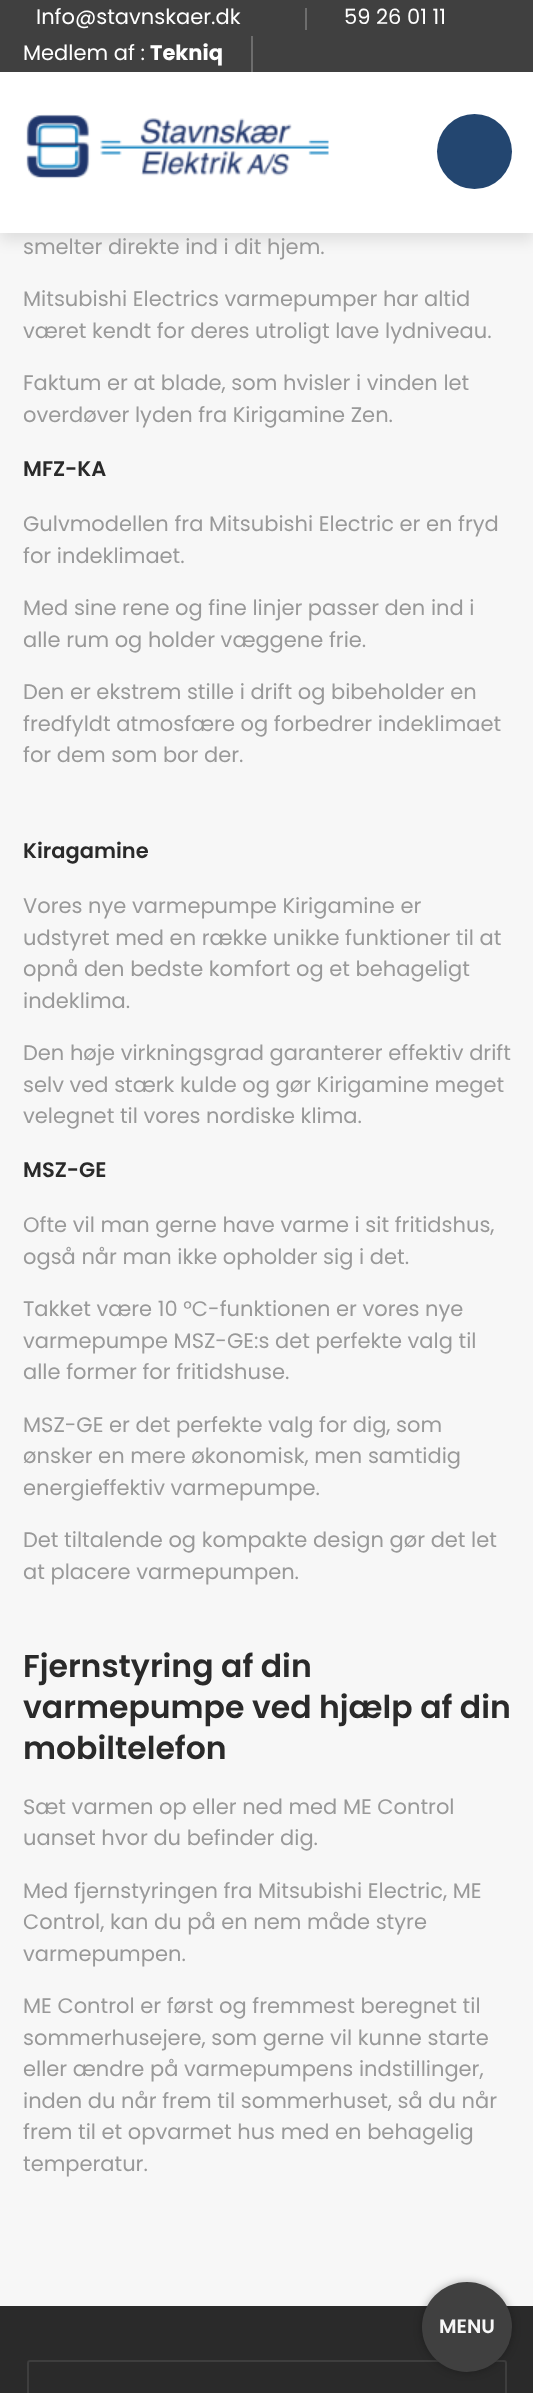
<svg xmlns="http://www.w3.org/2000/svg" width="533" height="2393">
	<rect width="100%" height="100%" fill="#F7F7F7" />
	<rect x="0" y="8" width="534" height="232" fill="#000000" fill-opacity="0.1" filter="blur(7.5px)" />
	<rect x="0" y="0" width="533" height="72" fill="#404040" />
	<text x="36" y="24" font-family="Poppins" font-size="21" fill="#FFFFFF">Info@stavnskaer.dk</text>
	<rect x="305" y="8" width="2" height="22" fill="#6D6D6D" />
	<g font-family="Poppins" font-size="21" fill="#FFFFFF">
		<text x="344" y="24">59 26 01 11</text>
		<text x="23" y="60">Medlem af :</text>
	</g>
	<text x="150" y="60" font-family="Poppins" font-size="21" font-weight="700" fill="#FFFFFF">Tekniq</text>
	<rect x="251" y="36" width="2" height="36" fill="#6D6D6D" />
	<rect x="0" y="72" width="533" height="161" fill="#FFFFFF" />
	<image x="26" y="114" width="303" height="65" href="assets/img1.png" />
	<circle cx="474.5" cy="151.5" r="37.5" fill="#234670" />
	<g font-family="Poppins" font-size="21" fill="#999999">
		<text x="23" y="254">smelter direkte ind i dit hjem.</text>
		<text x="23" y="306">Mitsubishi Electrics varmepumper har altid</text>
		<text x="23" y="338">været kendt for deres utroligt lave lydniveau.</text>
		<text x="23" y="390">Faktum er at blade, som hvisler i vinden let</text>
		<text x="23" y="422">overdøver lyden fra Kirigamine Zen.</text>
	</g>
	<text x="23" y="476" font-family="Poppins" font-size="21" font-weight="600" fill="#2A2A2A">MFZ-KA</text>
	<g font-family="Poppins" font-size="21" fill="#999999">
		<text x="23" y="531">Gulvmodellen fra Mitsubishi Electric er en fryd</text>
		<text x="23" y="563">for indeklimaet.</text>
		<text x="23" y="615">Med sine rene og fine linjer passer den ind i</text>
		<text x="23" y="647">alle rum og holder væggene frie.</text>
		<text x="23" y="699">Den er ekstrem stille i drift og bibeholder en</text>
		<text x="23" y="731">fredfyldt atmosfære og forbedrer indeklimaet</text>
		<text x="23" y="762">for dem som bor der.</text>
	</g>
	<text x="23" y="858" font-family="Poppins" font-size="21" font-weight="600" fill="#2A2A2A">Kiragamine</text>
	<g font-family="Poppins" font-size="21" fill="#999999">
		<text x="23" y="913">Vores nye varmepumpe Kirigamine er</text>
		<text x="23" y="945">udstyret med en række unikke funktioner til at</text>
		<text x="23" y="976">opnå den bedste komfort og et behageligt</text>
		<text x="23" y="1008">indeklima.</text>
		<text x="23" y="1060">Den høje virkningsgrad garanterer effektiv drift</text>
		<text x="23" y="1092">selv ved stærk kulde og gør Kirigamine meget</text>
		<text x="23" y="1123">velegnet til vores nordiske klima.</text>
	</g>
	<text x="23" y="1177" font-family="Poppins" font-size="21" font-weight="600" fill="#2A2A2A">MSZ-GE</text>
	<g font-family="Poppins" font-size="21" fill="#999999">
		<text x="23" y="1232">Ofte vil man gerne have varme i sit fritidshus,</text>
		<text x="23" y="1264">også når man ikke opholder sig i det.</text>
		<text x="23" y="1316">Takket være 10 °C-funktionen er vores nye</text>
		<text x="23" y="1348">varmepumpe MSZ-GE:s det perfekte valg til</text>
		<text x="23" y="1379">alle former for fritidshuse.</text>
		<text x="23" y="1432">MSZ-GE er det perfekte valg for dig, som</text>
		<text x="23" y="1463">ønsker en mere økonomisk, men samtidig</text>
		<text x="23" y="1495">energieffektiv varmepumpe.</text>
		<text x="23" y="1547">Det tiltalende og kompakte design gør det let</text>
		<text x="23" y="1579">at placere varmepumpen.</text>
	</g>
	<g font-family="Poppins" font-size="31.5" font-weight="600" fill="#2A2A2A">
		<text x="23" y="1677">Fjernstyring af din</text>
		<text x="23" y="1718">varmepumpe ved hjælp af din</text>
		<text x="23" y="1759">mobiltelefon</text>
	</g>
	<g font-family="Poppins" font-size="21" fill="#999999">
		<text x="23" y="1814">Sæt varmen op eller ned med ME Control</text>
		<text x="23" y="1845">uanset hvor du befinder dig.</text>
		<text x="23" y="1898">Med fjernstyringen fra Mitsubishi Electric, ME</text>
		<text x="23" y="1929">Control, kan du på en nem måde styre</text>
		<text x="23" y="1961">varmepumpen.</text>
		<text x="23" y="2013">ME Control er først og fremmest beregnet til</text>
		<text x="23" y="2045">sommerhusejere, som gerne vil kunne starte</text>
		<text x="23" y="2076">eller ændre på varmepumpens indstillinger,</text>
		<text x="23" y="2108">inden du når frem til sommerhuset, så du når</text>
		<text x="23" y="2139">frem til et opvarmet hus med en behagelig</text>
		<text x="23" y="2171">temperatur.</text>
	</g>
	<rect x="0" y="2306" width="533" height="87" fill="#2A2A2A" />
	<rect x="28" y="2361" width="478" height="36" rx="2" fill="none" stroke="#3E3E3E" stroke-width="2" />
	<rect x="422" y="2282" width="90" height="90" rx="45" fill="#000000" fill-opacity="0.3" filter="blur(4px)" />
	<circle cx="467" cy="2327" r="45" fill="#404040" />
	<text x="439" y="2333" font-family="Poppins" font-size="19.5" font-weight="600" fill="#F7F7F7">MENU</text>
</svg>
